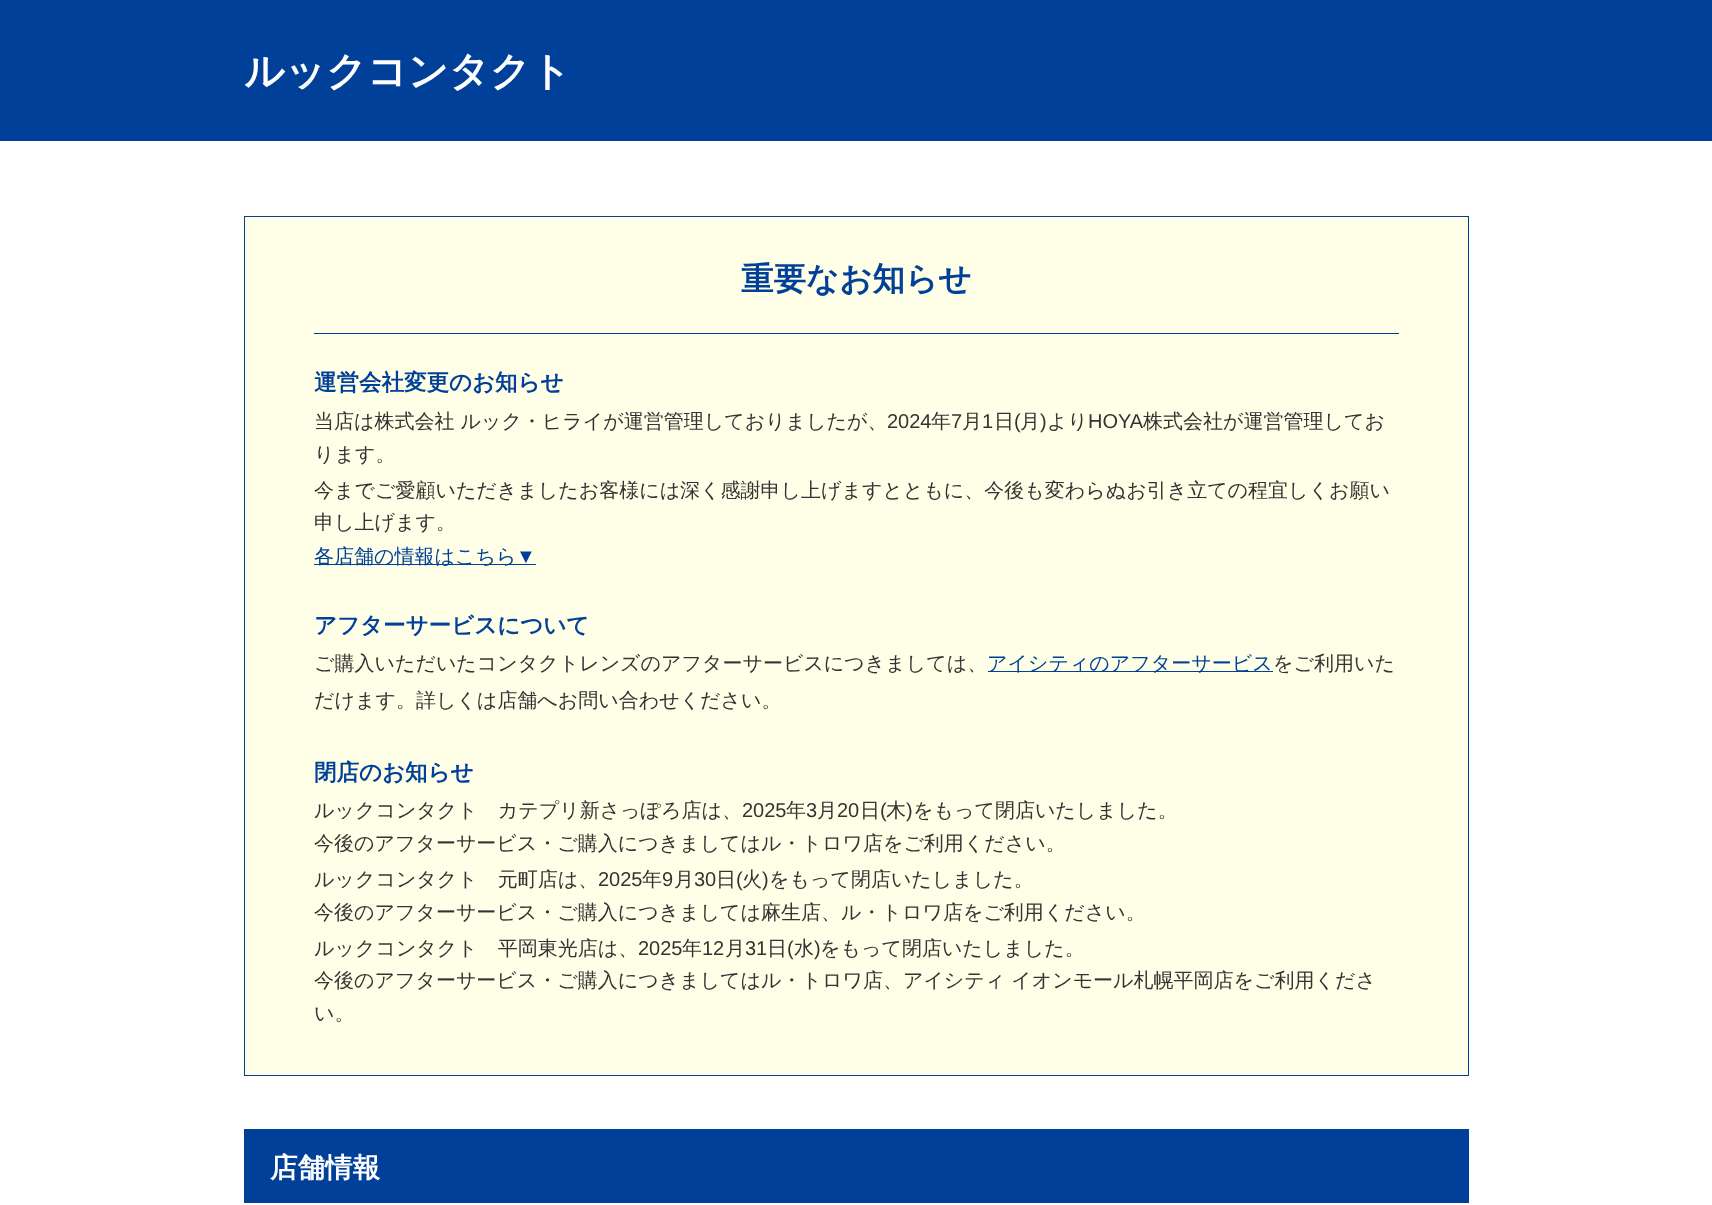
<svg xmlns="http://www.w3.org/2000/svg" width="1712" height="1205">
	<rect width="100%" height="100%" fill="#FFFFFF" />
	<rect x="0" y="0" width="1712" height="141" fill="#014099" />
	<text x="244" y="85" font-family="WenQuanYi Zen Hei" font-size="40" font-weight="700" fill="#FFFFFF">ルックコンタクト</text>
	<rect x="244.5" y="216.5" width="1224" height="859" fill="#FFFEE6" stroke="#014099" />
	<rect x="314" y="333" width="1085" height="1" fill="#014099" />
	<text x="741" y="290" font-family="WenQuanYi Zen Hei" font-size="32.5" font-weight="700" fill="#014099">重要なお知らせ</text>
	<text x="314" y="390" font-family="WenQuanYi Zen Hei" font-size="22.5" font-weight="700" fill="#014099">運営会社変更のお知らせ</text>
	<text x="314" y="428" font-family="WenQuanYi Zen Hei" font-size="20" font-weight="500" fill="#333333">当店は株式会社 ルック・ヒライが運営管理しておりましたが、</text>
	<text x="887" y="428" font-family="Liberation Sans" font-size="20" fill="#333333">2024</text>
	<text x="931" y="428" font-family="WenQuanYi Zen Hei" font-size="20" font-weight="500" fill="#333333">年</text>
	<text x="951" y="428" font-family="Liberation Sans" font-size="20" fill="#333333">7</text>
	<text x="962" y="428" font-family="WenQuanYi Zen Hei" font-size="20" font-weight="500" fill="#333333">月</text>
	<text x="982" y="428" font-family="Liberation Sans" font-size="20" fill="#333333">1</text>
	<text x="994" y="428" font-family="WenQuanYi Zen Hei" font-size="20" font-weight="500" fill="#333333">日</text>
	<text x="1014" y="428" font-family="Liberation Sans" font-size="20" fill="#333333">(</text>
	<text x="1020" y="428" font-family="WenQuanYi Zen Hei" font-size="20" font-weight="500" fill="#333333">月</text>
	<text x="1040" y="428" font-family="Liberation Sans" font-size="20" fill="#333333">)</text>
	<text x="1047" y="428" font-family="WenQuanYi Zen Hei" font-size="20" font-weight="500" fill="#333333">より</text>
	<text x="1088" y="428" font-family="Liberation Sans" font-size="20" fill="#333333">HOYA</text>
	<g font-family="WenQuanYi Zen Hei" font-size="20" font-weight="500" fill="#333333">
		<text x="1143" y="428">株式会社が運営管理してお</text>
		<text x="314" y="461">ります。</text>
		<text x="314" y="497">今までご愛顧いただきましたお客様には深く感謝申し上げますとともに、今後も変わらぬお引き立ての程宜しくお願い</text>
		<text x="314" y="529">申し上げます。</text>
	</g>
	<rect x="314" y="564" width="222" height="1" fill="#014099" />
	<text x="314" y="563" font-family="WenQuanYi Zen Hei" font-size="20" font-weight="500" fill="#014099">各店舗の情報はこちら</text>
	<text x="516" y="563" font-family="Liberation Sans" font-size="20" fill="#014099">▼</text>
	<text x="314" y="633" font-family="WenQuanYi Zen Hei" font-size="22.5" font-weight="700" fill="#014099">アフターサービスについて</text>
	<text x="314" y="670" font-family="WenQuanYi Zen Hei" font-size="20" font-weight="500" fill="#333333">ご購入いただいたコンタクトレンズのアフターサービスにつきましては、</text>
	<rect x="988" y="671" width="285" height="1" fill="#014099" />
	<text x="987" y="670" font-family="WenQuanYi Zen Hei" font-size="20" font-weight="500" fill="#014099">アイシティのアフターサービス</text>
	<g font-family="WenQuanYi Zen Hei" font-size="20" font-weight="500" fill="#333333">
		<text x="1273" y="670">をご利用いた</text>
		<text x="314" y="707">だけます。詳しくは店舗へお問い合わせください。</text>
	</g>
	<text x="314" y="780" font-family="WenQuanYi Zen Hei" font-size="22.5" font-weight="700" fill="#014099">閉店のお知らせ</text>
	<text x="314" y="817" font-family="WenQuanYi Zen Hei" font-size="20" font-weight="500" fill="#333333">ルックコンタクト　カテプリ新さっぽろ店は、</text>
	<text x="742" y="817" font-family="Liberation Sans" font-size="20" fill="#333333">2025</text>
	<text x="786" y="817" font-family="WenQuanYi Zen Hei" font-size="20" font-weight="500" fill="#333333">年</text>
	<text x="806" y="817" font-family="Liberation Sans" font-size="20" fill="#333333">3</text>
	<text x="817" y="817" font-family="WenQuanYi Zen Hei" font-size="20" font-weight="500" fill="#333333">月</text>
	<text x="837" y="817" font-family="Liberation Sans" font-size="20" fill="#333333">20</text>
	<text x="860" y="817" font-family="WenQuanYi Zen Hei" font-size="20" font-weight="500" fill="#333333">日</text>
	<text x="880" y="817" font-family="Liberation Sans" font-size="20" fill="#333333">(</text>
	<text x="886" y="817" font-family="WenQuanYi Zen Hei" font-size="20" font-weight="500" fill="#333333">木</text>
	<text x="906" y="817" font-family="Liberation Sans" font-size="20" fill="#333333">)</text>
	<g font-family="WenQuanYi Zen Hei" font-size="20" font-weight="500" fill="#333333">
		<text x="913" y="817">をもって閉店いたしました。</text>
		<text x="314" y="850">今後のアフターサービス・ご購入につきましてはル・トロワ店をご利用ください。</text>
		<text x="314" y="886">ルックコンタクト　元町店は、</text>
	</g>
	<text x="598" y="886" font-family="Liberation Sans" font-size="20" fill="#333333">2025</text>
	<text x="642" y="886" font-family="WenQuanYi Zen Hei" font-size="20" font-weight="500" fill="#333333">年</text>
	<text x="662" y="886" font-family="Liberation Sans" font-size="20" fill="#333333">9</text>
	<text x="674" y="886" font-family="WenQuanYi Zen Hei" font-size="20" font-weight="500" fill="#333333">月</text>
	<text x="694" y="886" font-family="Liberation Sans" font-size="20" fill="#333333">30</text>
	<text x="716" y="886" font-family="WenQuanYi Zen Hei" font-size="20" font-weight="500" fill="#333333">日</text>
	<text x="736" y="886" font-family="Liberation Sans" font-size="20" fill="#333333">(</text>
	<text x="742" y="886" font-family="WenQuanYi Zen Hei" font-size="20" font-weight="500" fill="#333333">火</text>
	<text x="762" y="886" font-family="Liberation Sans" font-size="20" fill="#333333">)</text>
	<g font-family="WenQuanYi Zen Hei" font-size="20" font-weight="500" fill="#333333">
		<text x="769" y="886">をもって閉店いたしました。</text>
		<text x="314" y="919">今後のアフターサービス・ご購入につきましては麻生店、ル・トロワ店をご利用ください。</text>
		<text x="314" y="955">ルックコンタクト　平岡東光店は、</text>
	</g>
	<text x="638" y="955" font-family="Liberation Sans" font-size="20" fill="#333333">2025</text>
	<text x="682" y="955" font-family="WenQuanYi Zen Hei" font-size="20" font-weight="500" fill="#333333">年</text>
	<text x="702" y="955" font-family="Liberation Sans" font-size="20" fill="#333333">12</text>
	<text x="725" y="955" font-family="WenQuanYi Zen Hei" font-size="20" font-weight="500" fill="#333333">月</text>
	<text x="745" y="955" font-family="Liberation Sans" font-size="20" fill="#333333">31</text>
	<text x="767" y="955" font-family="WenQuanYi Zen Hei" font-size="20" font-weight="500" fill="#333333">日</text>
	<text x="787" y="955" font-family="Liberation Sans" font-size="20" fill="#333333">(</text>
	<text x="794" y="955" font-family="WenQuanYi Zen Hei" font-size="20" font-weight="500" fill="#333333">水</text>
	<text x="814" y="955" font-family="Liberation Sans" font-size="20" fill="#333333">)</text>
	<g font-family="WenQuanYi Zen Hei" font-size="20" font-weight="500" fill="#333333">
		<text x="820" y="955">をもって閉店いたしました。</text>
		<text x="314" y="987">今後のアフターサービス・ご購入につきましてはル・トロワ店、アイシティ イオンモール札幌平岡店をご利用くださ</text>
		<text x="314" y="1020">い。</text>
	</g>
	<rect x="244" y="1129" width="1225" height="74" fill="#014099" />
	<text x="270" y="1177" font-family="WenQuanYi Zen Hei" font-size="27.5" font-weight="700" fill="#FFFFFF">店舗情報</text>
</svg>
